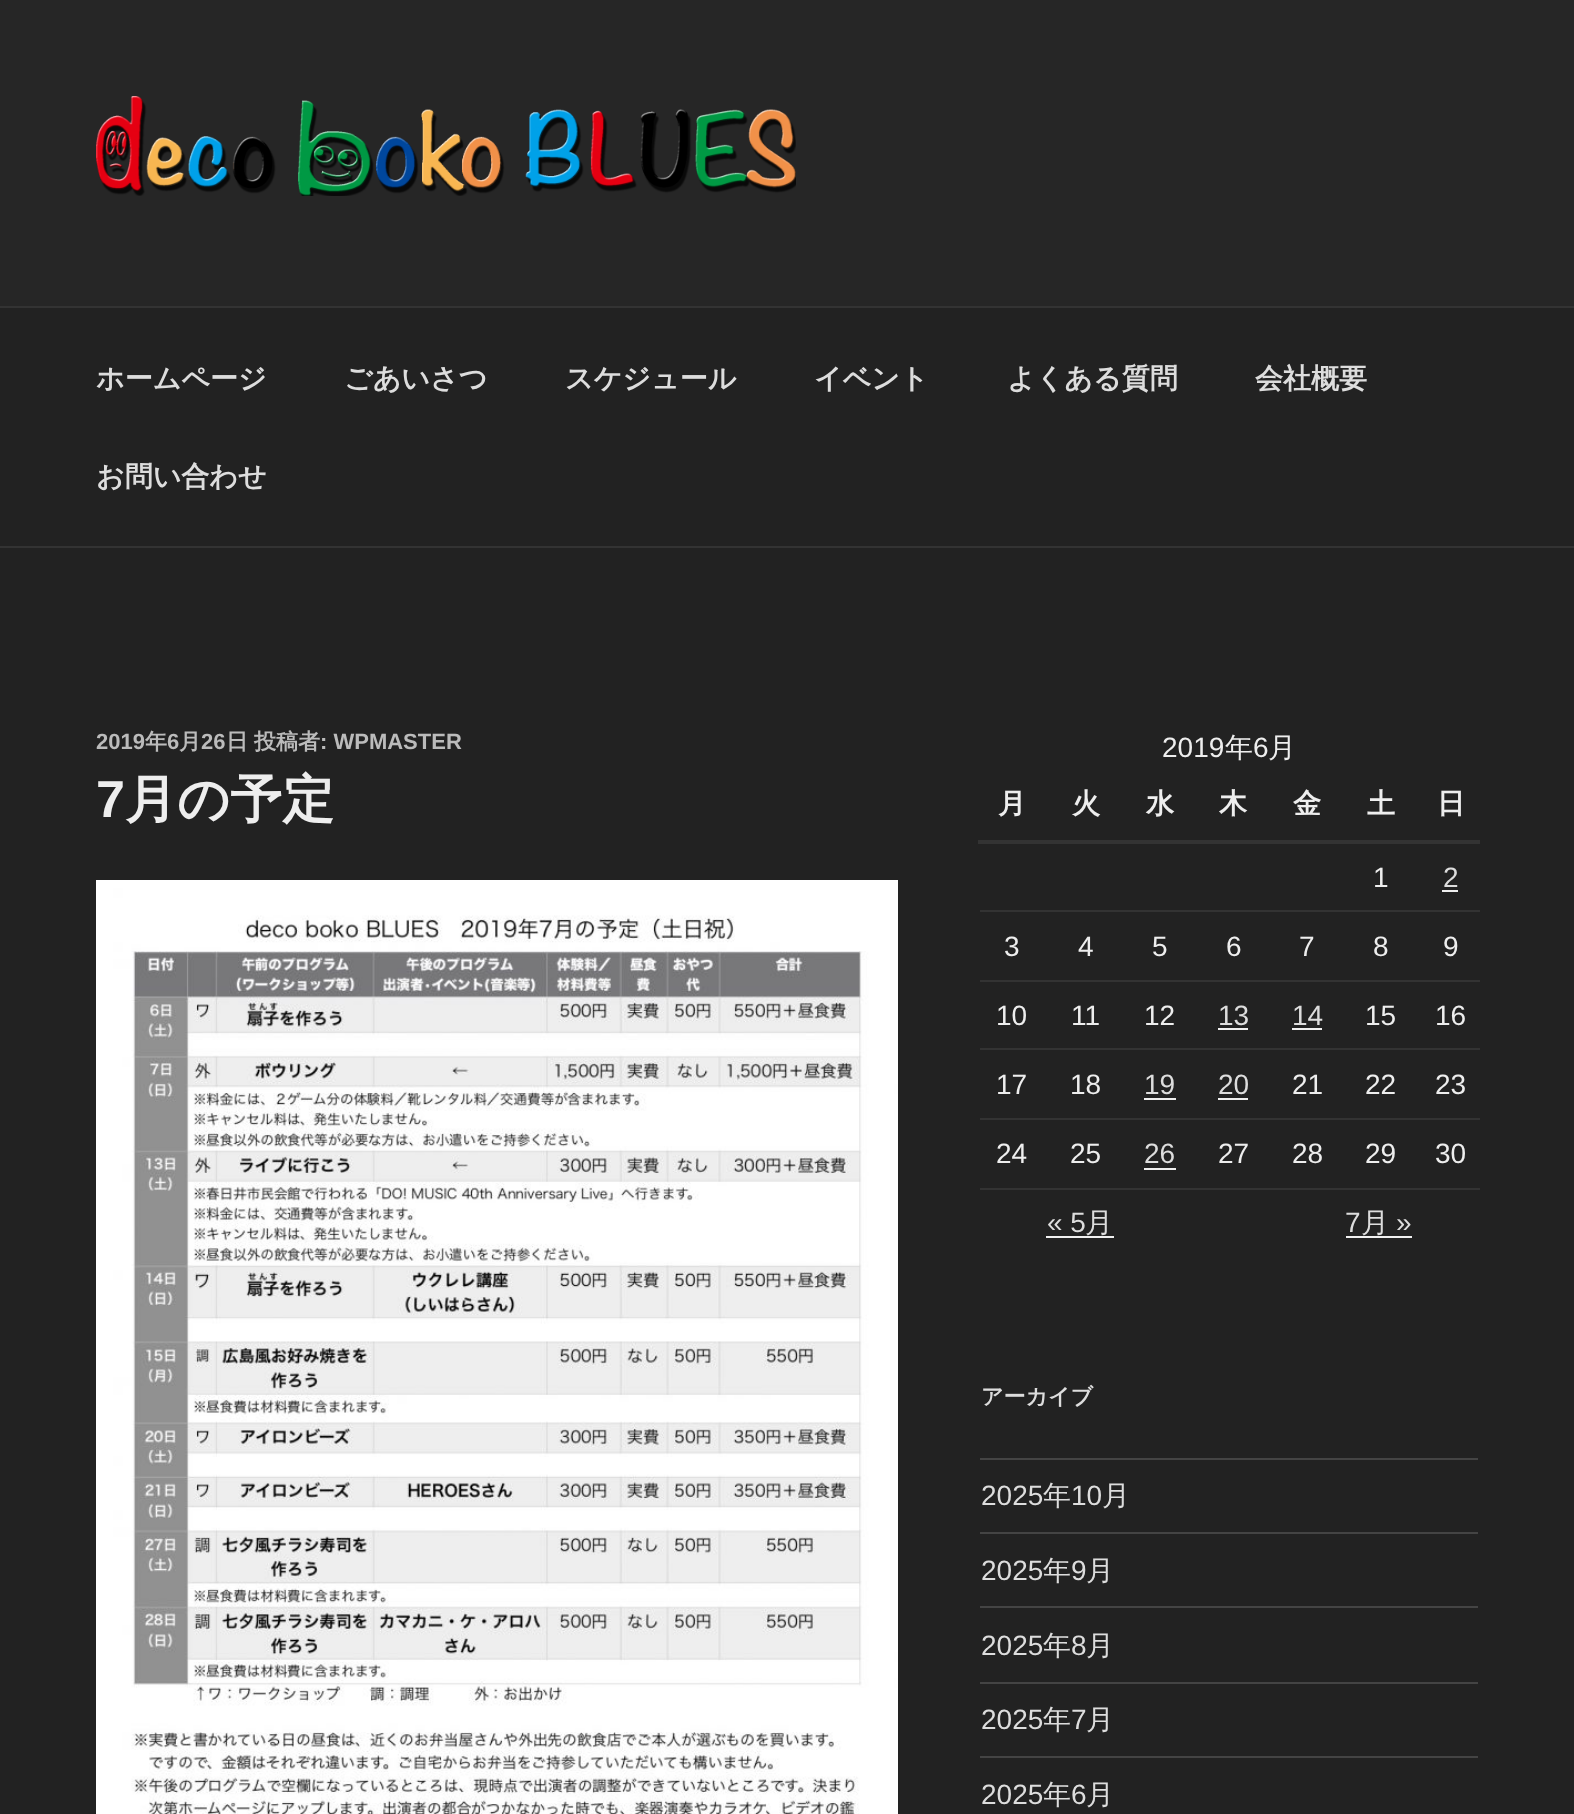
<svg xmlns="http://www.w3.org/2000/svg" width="1574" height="1814">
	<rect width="100%" height="100%" fill="#222222" />
	<rect x="0" y="0" width="1574" height="306" fill="#262626" />
	<image x="96" y="96" width="700" height="100" href="assets/img1.png" />
	<rect x="0" y="306" width="1574" height="2" fill="#333333" />
	<rect x="0" y="546" width="1574" height="2" fill="#333333" />
	<g font-family="WenQuanYi Zen Hei" font-size="28" font-weight="700" fill="#DDDDDD">
		<text x="96" y="388">ホームページ</text>
		<text x="344" y="388">ごあいさつ</text>
		<text x="565" y="388">スケジュール</text>
		<text x="814" y="388">イベント</text>
		<text x="1007" y="388">よくある質問</text>
		<text x="1255" y="388">会社概要</text>
		<text x="96" y="486">お問い合わせ</text>
	</g>
	<text x="96" y="749" font-family="Liberation Sans" font-size="22" font-weight="700" fill="#BBBBBB">2019</text>
	<text x="145" y="749" font-family="WenQuanYi Zen Hei" font-size="22" font-weight="700" fill="#BBBBBB">年</text>
	<text x="167" y="749" font-family="Liberation Sans" font-size="22" font-weight="700" fill="#BBBBBB">6</text>
	<text x="179" y="749" font-family="WenQuanYi Zen Hei" font-size="22" font-weight="700" fill="#BBBBBB">月</text>
	<text x="201" y="749" font-family="Liberation Sans" font-size="22" font-weight="700" fill="#BBBBBB">26</text>
	<g font-family="WenQuanYi Zen Hei" font-size="22" font-weight="700" fill="#BBBBBB">
		<text x="226" y="749">日</text>
		<text x="254" y="749">投稿者</text>
	</g>
	<text x="320" y="749" font-family="Liberation Sans" font-size="22" font-weight="700" fill="#BBBBBB">: WPMASTER</text>
	<text x="96" y="817" font-family="Liberation Sans" font-size="52" font-weight="700" fill="#EEEEEE">7</text>
	<text x="125" y="817" font-family="WenQuanYi Zen Hei" font-size="52" font-weight="700" fill="#EEEEEE">月の予定</text>
	<image x="96" y="880" width="802" height="934" href="assets/img2.png" />
	<text x="1162" y="757" font-family="Liberation Sans" font-size="28" fill="#EEEEEE">2019</text>
	<text x="1225" y="757" font-family="WenQuanYi Zen Hei" font-size="28" font-weight="500" fill="#EEEEEE">年</text>
	<text x="1253" y="757" font-family="Liberation Sans" font-size="28" fill="#EEEEEE">6</text>
	<text x="1268" y="757" font-family="WenQuanYi Zen Hei" font-size="28" font-weight="500" fill="#EEEEEE">月</text>
	<g font-family="WenQuanYi Zen Hei" font-size="28" font-weight="700" fill="#EEEEEE">
		<text x="998" y="813">月</text>
		<text x="1072" y="813">火</text>
		<text x="1146" y="813">水</text>
		<text x="1219" y="813">木</text>
		<text x="1293" y="813">金</text>
		<text x="1367" y="813">土</text>
	</g>
	<rect x="978" y="840" width="502" height="4" fill="#333333" />
	<text x="1437" y="813" font-family="WenQuanYi Zen Hei" font-size="28" font-weight="700" fill="#EEEEEE">日</text>
	<rect x="980" y="910" width="500" height="2" fill="#333333" />
	<text x="1373" y="887" font-family="Liberation Sans" font-size="28" fill="#EEEEEE">1</text>
	<text x="1443" y="887" font-family="Liberation Sans" font-size="28" fill="#DDDDDD">2</text>
	<rect x="1442" y="890" width="16" height="2" fill="#F0F0F0" />
	<rect x="980" y="980" width="500" height="2" fill="#333333" />
	<g font-family="Liberation Sans" font-size="28" fill="#EEEEEE">
		<text x="1004" y="956">3</text>
		<text x="1078" y="956">4</text>
		<text x="1152" y="956">5</text>
		<text x="1226" y="956">6</text>
		<text x="1299" y="956">7</text>
		<text x="1373" y="956">8</text>
		<text x="1443" y="956">9</text>
	</g>
	<rect x="980" y="1048" width="500" height="2" fill="#333333" />
	<g font-family="Liberation Sans" font-size="28" fill="#EEEEEE">
		<text x="996" y="1025">10</text>
		<text x="1071" y="1025">11</text>
		<text x="1144" y="1025">12</text>
	</g>
	<text x="1218" y="1025" font-family="Liberation Sans" font-size="28" fill="#DDDDDD">13</text>
	<rect x="1218" y="1028" width="30" height="2" fill="#F0F0F0" />
	<text x="1292" y="1025" font-family="Liberation Sans" font-size="28" fill="#DDDDDD">14</text>
	<rect x="1292" y="1028" width="30" height="2" fill="#F0F0F0" />
	<g font-family="Liberation Sans" font-size="28" fill="#EEEEEE">
		<text x="1365" y="1025">15</text>
		<text x="1435" y="1025">16</text>
	</g>
	<rect x="980" y="1118" width="500" height="2" fill="#333333" />
	<g font-family="Liberation Sans" font-size="28" fill="#EEEEEE">
		<text x="996" y="1094">17</text>
		<text x="1070" y="1094">18</text>
	</g>
	<text x="1144" y="1094" font-family="Liberation Sans" font-size="28" fill="#DDDDDD">19</text>
	<rect x="1144" y="1098" width="32" height="2" fill="#F0F0F0" />
	<text x="1218" y="1094" font-family="Liberation Sans" font-size="28" fill="#DDDDDD">20</text>
	<rect x="1218" y="1098" width="30" height="2" fill="#F0F0F0" />
	<g font-family="Liberation Sans" font-size="28" fill="#EEEEEE">
		<text x="1292" y="1094">21</text>
		<text x="1365" y="1094">22</text>
		<text x="1435" y="1094">23</text>
	</g>
	<rect x="980" y="1188" width="500" height="2" fill="#333333" />
	<g font-family="Liberation Sans" font-size="28" fill="#EEEEEE">
		<text x="996" y="1163">24</text>
		<text x="1070" y="1163">25</text>
	</g>
	<text x="1144" y="1163" font-family="Liberation Sans" font-size="28" fill="#DDDDDD">26</text>
	<rect x="1144" y="1168" width="32" height="2" fill="#F0F0F0" />
	<g font-family="Liberation Sans" font-size="28" fill="#EEEEEE">
		<text x="1218" y="1163">27</text>
		<text x="1292" y="1163">28</text>
		<text x="1365" y="1163">29</text>
		<text x="1435" y="1163">30</text>
	</g>
	<text x="1047" y="1232" font-family="Liberation Sans" font-size="28" fill="#DDDDDD">« 5</text>
	<text x="1085" y="1232" font-family="WenQuanYi Zen Hei" font-size="28" font-weight="500" fill="#DDDDDD">月</text>
	<rect x="1046" y="1236" width="68" height="2" fill="#F0F0F0" />
	<text x="1345" y="1232" font-family="Liberation Sans" font-size="28" fill="#DDDDDD">7</text>
	<text x="1361" y="1232" font-family="WenQuanYi Zen Hei" font-size="28" font-weight="500" fill="#DDDDDD">月</text>
	<text x="1396" y="1232" font-family="Liberation Sans" font-size="28" fill="#DDDDDD">»</text>
	<rect x="1346" y="1236" width="66" height="2" fill="#F0F0F0" />
	<text x="981" y="1404" font-family="WenQuanYi Zen Hei" font-size="22" font-weight="700" fill="#DDDDDD">アーカイブ</text>
	<rect x="980" y="1458" width="498" height="2" fill="#444444" />
	<rect x="980" y="1532" width="498" height="2" fill="#444444" />
	<text x="981" y="1505" font-family="Liberation Sans" font-size="28" fill="#DDDDDD">2025</text>
	<text x="1043" y="1505" font-family="WenQuanYi Zen Hei" font-size="28" font-weight="500" fill="#DDDDDD">年</text>
	<text x="1071" y="1505" font-family="Liberation Sans" font-size="28" fill="#DDDDDD">10</text>
	<text x="1102" y="1505" font-family="WenQuanYi Zen Hei" font-size="28" font-weight="500" fill="#DDDDDD">月</text>
	<rect x="980" y="1606" width="498" height="2" fill="#444444" />
	<text x="981" y="1580" font-family="Liberation Sans" font-size="28" fill="#DDDDDD">2025</text>
	<text x="1043" y="1580" font-family="WenQuanYi Zen Hei" font-size="28" font-weight="500" fill="#DDDDDD">年</text>
	<text x="1071" y="1580" font-family="Liberation Sans" font-size="28" fill="#DDDDDD">9</text>
	<text x="1086" y="1580" font-family="WenQuanYi Zen Hei" font-size="28" font-weight="500" fill="#DDDDDD">月</text>
	<rect x="980" y="1682" width="498" height="2" fill="#444444" />
	<text x="981" y="1655" font-family="Liberation Sans" font-size="28" fill="#DDDDDD">2025</text>
	<text x="1043" y="1655" font-family="WenQuanYi Zen Hei" font-size="28" font-weight="500" fill="#DDDDDD">年</text>
	<text x="1071" y="1655" font-family="Liberation Sans" font-size="28" fill="#DDDDDD">8</text>
	<text x="1086" y="1655" font-family="WenQuanYi Zen Hei" font-size="28" font-weight="500" fill="#DDDDDD">月</text>
	<rect x="980" y="1756" width="498" height="2" fill="#444444" />
	<text x="981" y="1729" font-family="Liberation Sans" font-size="28" fill="#DDDDDD">2025</text>
	<text x="1043" y="1729" font-family="WenQuanYi Zen Hei" font-size="28" font-weight="500" fill="#DDDDDD">年</text>
	<text x="1071" y="1729" font-family="Liberation Sans" font-size="28" fill="#DDDDDD">7</text>
	<text x="1086" y="1729" font-family="WenQuanYi Zen Hei" font-size="28" font-weight="500" fill="#DDDDDD">月</text>
	<text x="981" y="1804" font-family="Liberation Sans" font-size="28" fill="#DDDDDD">2025</text>
	<text x="1043" y="1804" font-family="WenQuanYi Zen Hei" font-size="28" font-weight="500" fill="#DDDDDD">年</text>
	<text x="1071" y="1804" font-family="Liberation Sans" font-size="28" fill="#DDDDDD">6</text>
	<text x="1086" y="1804" font-family="WenQuanYi Zen Hei" font-size="28" font-weight="500" fill="#DDDDDD">月</text>
</svg>
